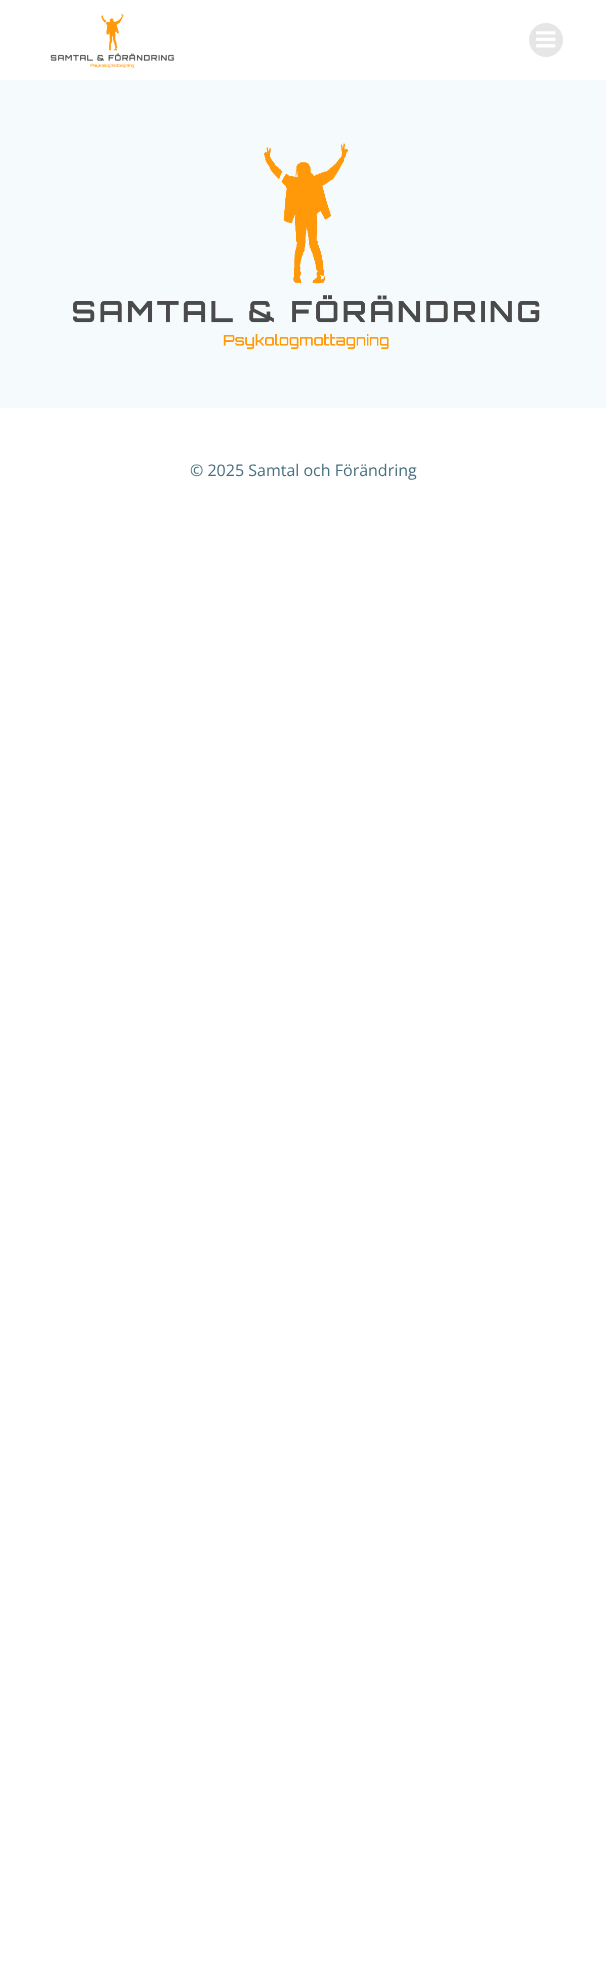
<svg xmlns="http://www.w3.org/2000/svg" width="606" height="1975">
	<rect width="100%" height="100%" fill="#FFFFFF" />
	<image x="50" y="13" width="125" height="55" href="assets/img1.png" />
	<circle cx="546" cy="40" r="17" fill="#E6E6E6" />
	<image x="536" y="31" width="20" height="17" href="assets/img2.png" />
	<rect x="0" y="80" width="606" height="328" fill="#F5FAFD" />
	<image x="73" y="143" width="467" height="207" href="assets/img3.png" />
	<text x="190" y="476" font-family="Open Sans" font-size="16" fill="#46707F">© 2025 Samtal och Förändring</text>
</svg>
